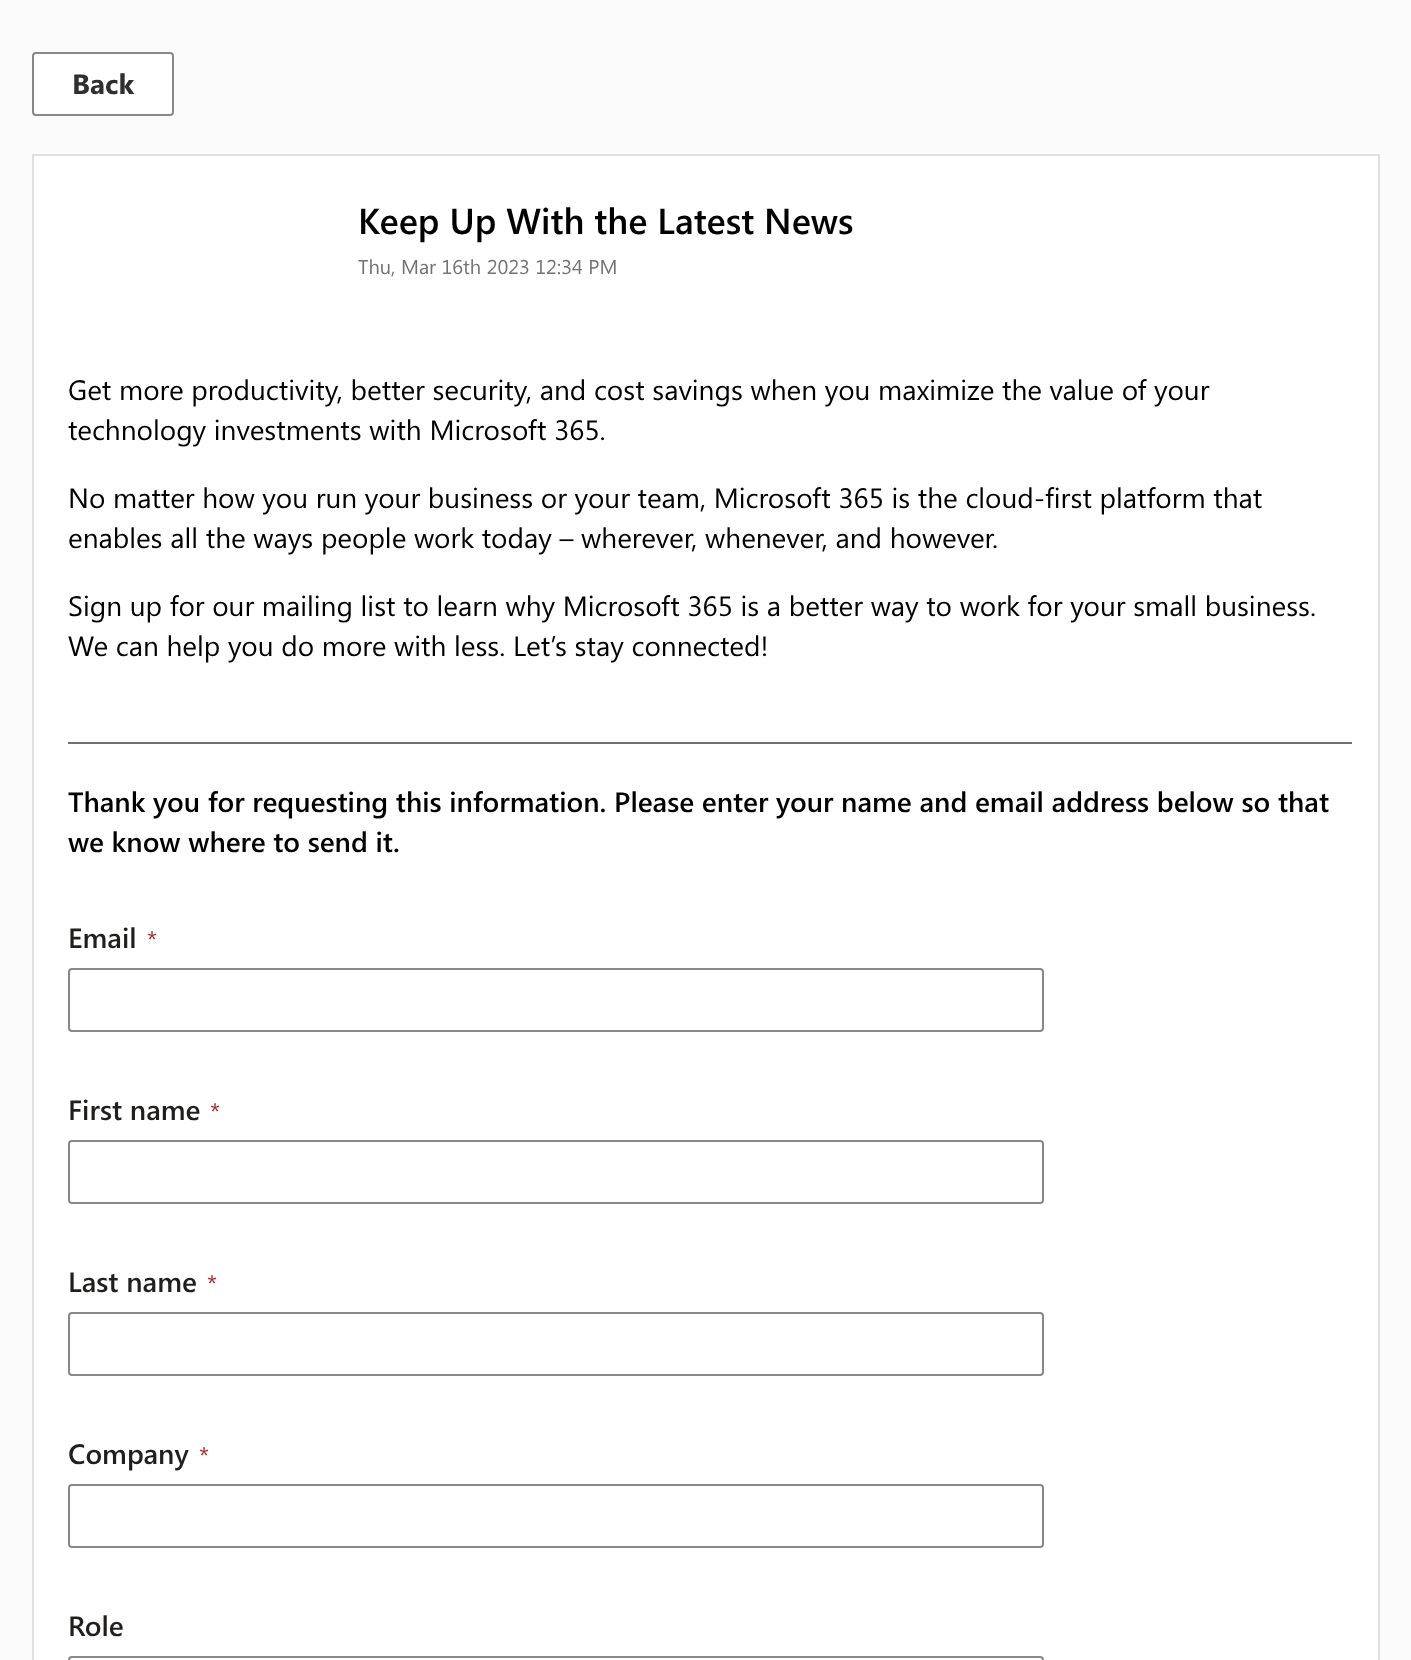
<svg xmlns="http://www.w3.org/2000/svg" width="1411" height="1660">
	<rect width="100%" height="100%" fill="#FBFBFB" />
	<rect x="33" y="53" width="140" height="62" rx="3" fill="#FFFFFF" stroke="#8A8886" stroke-width="2" />
	<text x="72" y="94" font-family="Segoe UI" font-size="28" font-weight="700" fill="#2F2F2F">Back</text>
	<rect x="33" y="155" width="1346" height="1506" fill="#FFFFFF" stroke="#E0E0E0" stroke-width="2" />
	<rect x="68" y="742" width="1284" height="2" fill="#717171" />
	<text x="358" y="234" font-family="Segoe UI" font-size="36" font-weight="600" fill="#000000">Keep Up With the Latest News</text>
	<text x="358" y="274" font-family="Segoe UI" font-size="20" fill="#737373">Thu, Mar 16th 2023 12:34 PM</text>
	<g font-family="Segoe UI" font-size="28" fill="#000000">
		<text x="68" y="400">Get more productivity, better security, and cost savings when you maximize the value of your</text>
		<text x="68" y="440">technology investments with Microsoft 365.</text>
		<text x="68" y="508">No matter how you run your business or your team, Microsoft 365 is the cloud-first platform that</text>
		<text x="68" y="548">enables all the ways people work today – wherever, whenever, and however.</text>
		<text x="68" y="616">Sign up for our mailing list to learn why Microsoft 365 is a better way to work for your small business.</text>
		<text x="68" y="656">We can help you do more with less. Let’s stay connected!</text>
	</g>
	<g font-family="Segoe UI" font-size="28" font-weight="600" fill="#000000">
		<text x="68" y="812">Thank you for requesting this information. Please enter your name and email address below so that</text>
		<text x="68" y="852">we know where to send it.</text>
	</g>
	<text x="68" y="948" font-family="Segoe UI" font-size="28" font-weight="600" fill="#201F1E">Email</text>
	<text x="147" y="948" font-family="Segoe UI" font-size="24" fill="#A4262C">*</text>
	<rect x="69" y="969" width="974" height="62" rx="3" fill="none" stroke="#8A8886" stroke-width="2" />
	<text x="68" y="1120" font-family="Segoe UI" font-size="28" font-weight="600" fill="#201F1E">First name</text>
	<text x="210" y="1120" font-family="Segoe UI" font-size="24" fill="#A4262C">*</text>
	<rect x="69" y="1141" width="974" height="62" rx="3" fill="none" stroke="#8A8886" stroke-width="2" />
	<text x="68" y="1292" font-family="Segoe UI" font-size="28" font-weight="600" fill="#201F1E">Last name</text>
	<text x="207" y="1292" font-family="Segoe UI" font-size="24" fill="#A4262C">*</text>
	<rect x="69" y="1313" width="974" height="62" rx="3" fill="none" stroke="#8A8886" stroke-width="2" />
	<text x="68" y="1464" font-family="Segoe UI" font-size="28" font-weight="600" fill="#201F1E">Company</text>
	<text x="199" y="1464" font-family="Segoe UI" font-size="24" fill="#A4262C">*</text>
	<rect x="69" y="1485" width="974" height="62" rx="3" fill="none" stroke="#8A8886" stroke-width="2" />
	<text x="68" y="1636" font-family="Segoe UI" font-size="28" font-weight="600" fill="#201F1E">Role</text>
	<rect x="69" y="1657" width="974" height="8" rx="3" fill="none" stroke="#8A8886" stroke-width="2" />
</svg>
